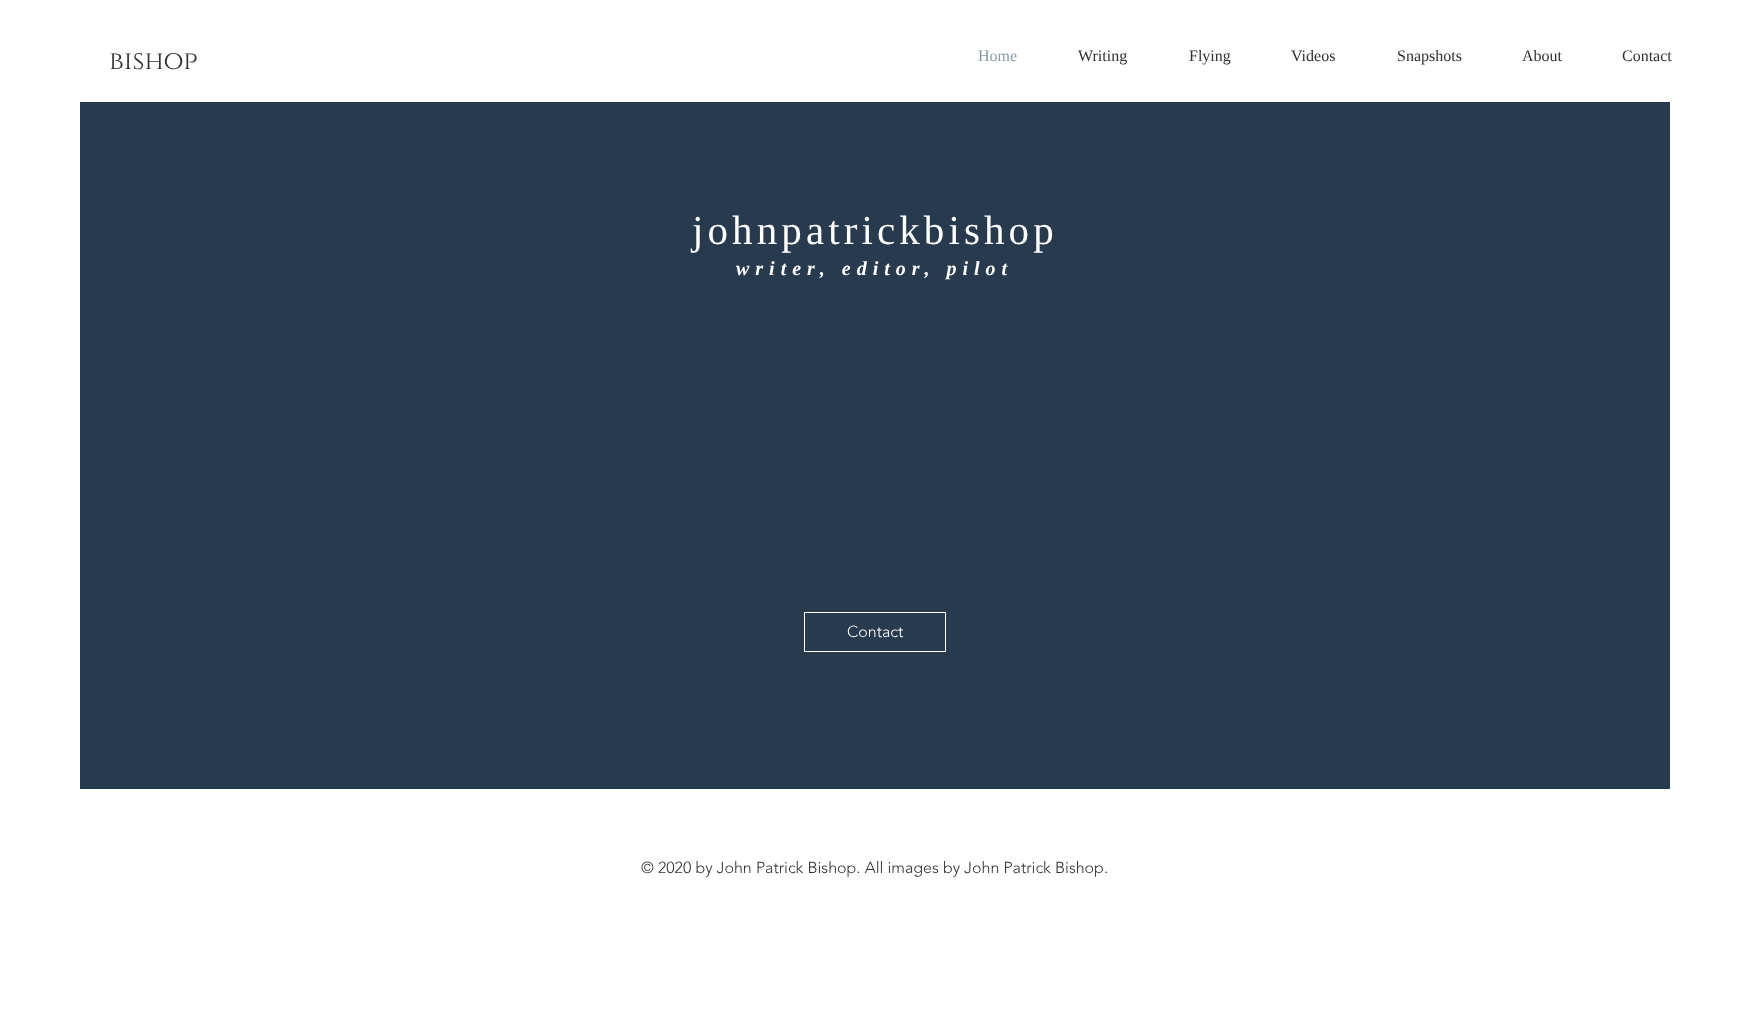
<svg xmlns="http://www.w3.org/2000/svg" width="1750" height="1015">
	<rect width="100%" height="100%" fill="#FFFFFF" />
	<text x="109" y="69" font-family="Cinzel" font-size="26" fill="#303131">bishop</text>
	<text x="978" y="61" font-family="Liberation Serif" font-size="16" fill="#8B98A7">Home</text>
	<g font-family="Liberation Serif" font-size="16" fill="#303131">
		<text x="1078" y="61">Writing</text>
		<text x="1189" y="61">Flying</text>
		<text x="1291" y="61">Videos</text>
		<text x="1397" y="61">Snapshots</text>
		<text x="1522" y="61">About</text>
		<text x="1622" y="61">Contact</text>
	</g>
	<rect x="80" y="102" width="1590" height="687" fill="#273A4E" />
	<text x="692" y="244" font-family="Liberation Serif" font-size="41" letter-spacing="4.1" fill="#FFFFFF">johnpatrickbishop</text>
	<text x="736" y="275" font-family="Liberation Serif" font-size="20" font-weight="700" font-style="italic" letter-spacing="6" fill="#FFFFFF">writer, editor, pilot</text>
	<rect x="804.5" y="612.5" width="141" height="39" fill="none" stroke="#FFFFFF" />
	<text x="847" y="637" font-family="'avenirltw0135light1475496'" font-size="16" font-weight="300" fill="#FFFFFF">Contact</text>
	<text x="641" y="873" font-family="'avenirltw0135light1475496'" font-size="16" font-weight="300" fill="#303131">© 2020 by John Patrick Bishop. All images by John Patrick Bishop.</text>
</svg>
